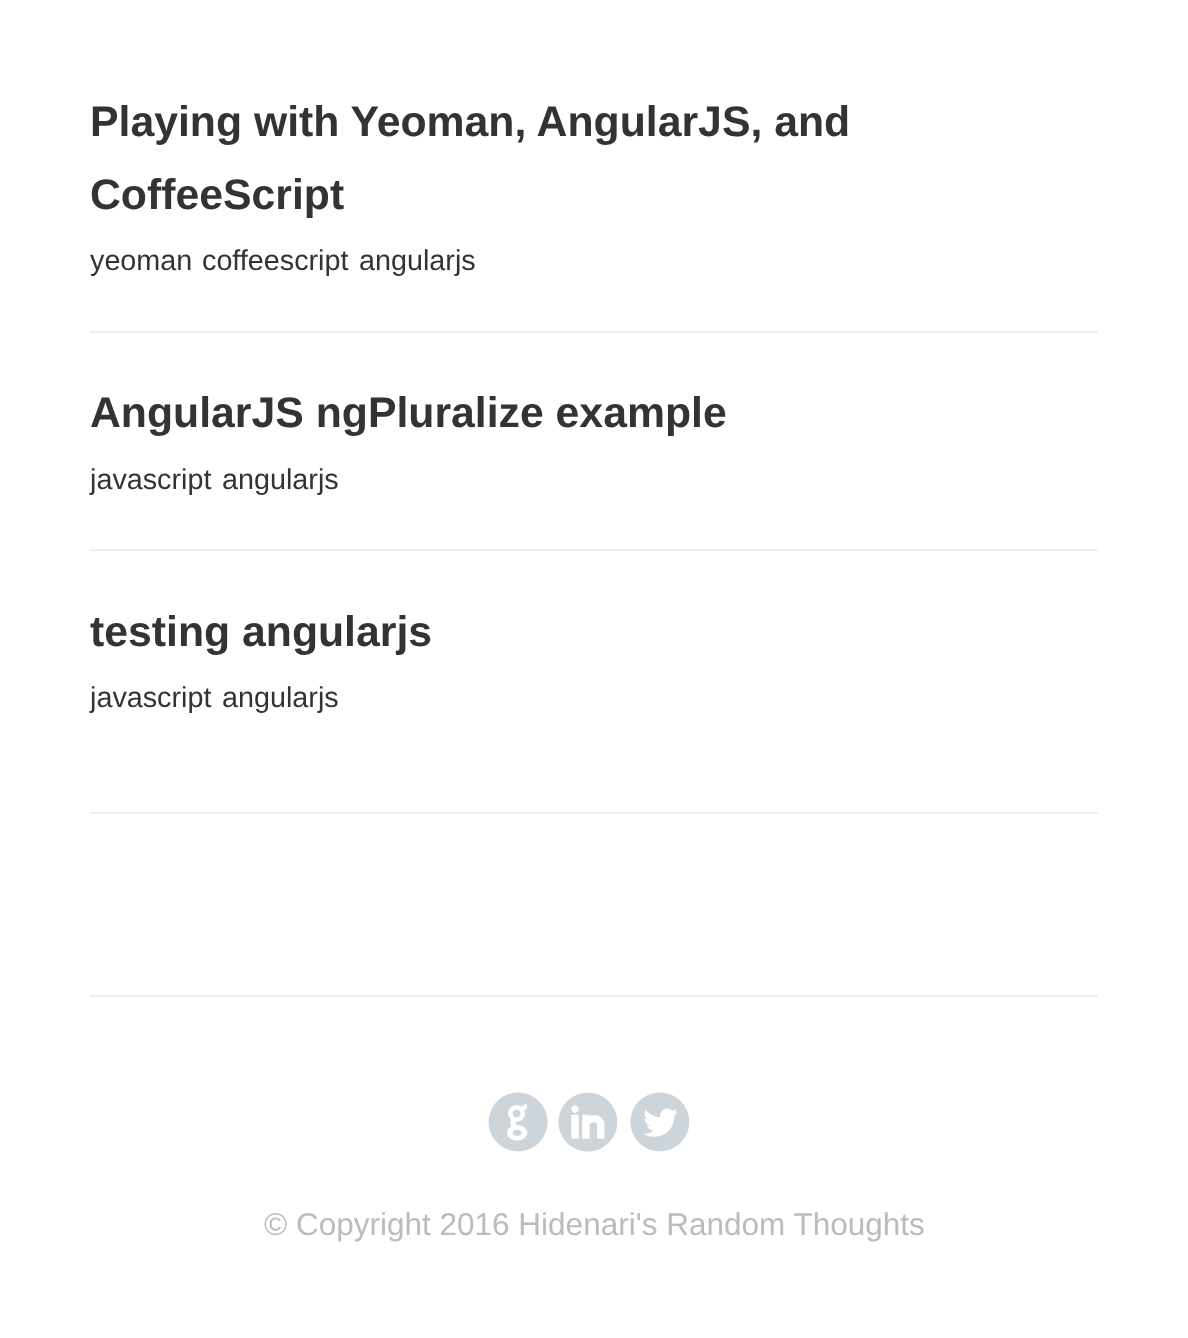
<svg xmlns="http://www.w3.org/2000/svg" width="1188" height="1338">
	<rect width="100%" height="100%" fill="#FFFFFF" />
	<g font-family="Liberation Sans" font-size="42.75" font-weight="700" fill="#333333">
		<text x="90" y="136">Playing with Yeoman, AngularJS, and</text>
		<text x="90" y="209">CoffeeScript</text>
	</g>
	<g font-family="Liberation Sans" font-size="28.75" fill="#333333">
		<text x="90" y="270">yeoman</text>
		<text x="202" y="270">coffeescript</text>
		<text x="359" y="270">angularjs</text>
	</g>
	<rect x="90" y="331" width="1008" height="2" fill="#EEEEEE" />
	<text x="90" y="427" font-family="Liberation Sans" font-size="42.75" font-weight="700" fill="#333333">AngularJS ngPluralize example</text>
	<g font-family="Liberation Sans" font-size="28.75" fill="#333333">
		<text x="90" y="489">javascript</text>
		<text x="222" y="489">angularjs</text>
	</g>
	<rect x="90" y="549" width="1008" height="2" fill="#EEEEEE" />
	<text x="90" y="646" font-family="Liberation Sans" font-size="42.75" font-weight="700" fill="#333333">testing angularjs</text>
	<g font-family="Liberation Sans" font-size="28.75" fill="#333333">
		<text x="90" y="707">javascript</text>
		<text x="222" y="707">angularjs</text>
	</g>
	<rect x="90" y="812" width="1008" height="2" fill="#EEEEEE" />
	<rect x="90" y="995" width="1008" height="2" fill="#EEEEEE" />
	<image x="488" y="1092" width="60" height="60" href="assets/img1.png" />
	<image x="558" y="1092" width="60" height="60" href="assets/img2.png" />
	<image x="630" y="1092" width="60" height="60" href="assets/img3.png" />
	<text x="264" y="1235" font-family="Liberation Sans" font-size="31.5" fill="#BBBBBB">© Copyright 2016 Hidenari's Random Thoughts</text>
</svg>
